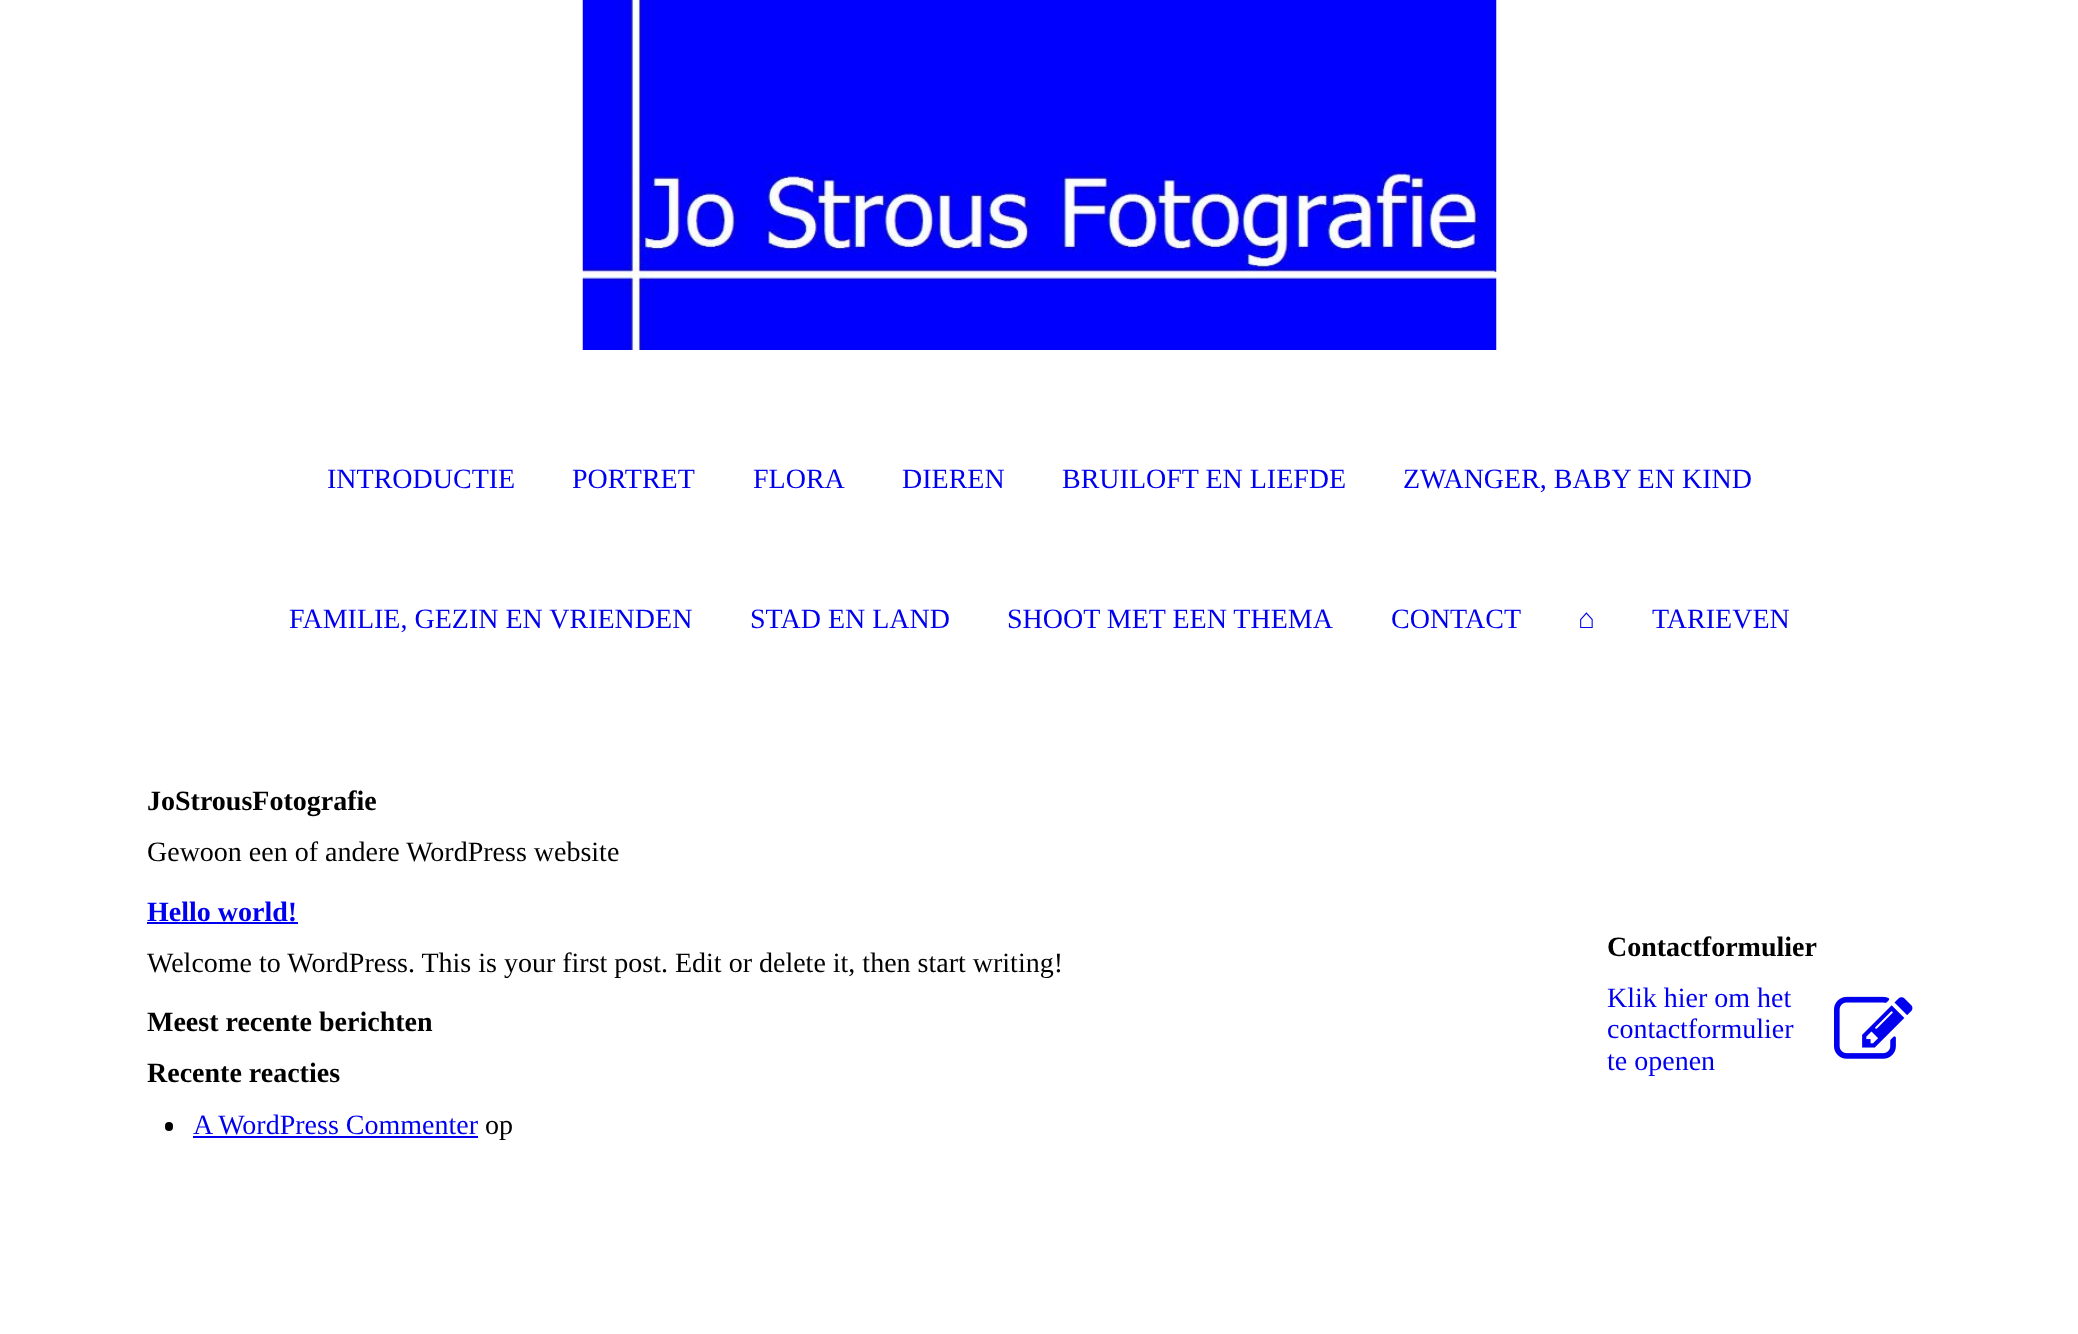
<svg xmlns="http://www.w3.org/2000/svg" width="2078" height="1334">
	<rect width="100%" height="100%" fill="#FFFFFF" />
	<image x="582" y="0" width="915" height="350" href="assets/img1.png" />
	<g font-family="Liberation Serif" font-size="28" fill="#0000EE">
		<text x="327" y="488">INTRODUCTIE</text>
		<text x="572" y="488">PORTRET</text>
		<text x="753" y="488">FLORA</text>
		<text x="902" y="488">DIEREN</text>
		<text x="1062" y="488">BRUILOFT EN LIEFDE</text>
		<text x="1403" y="488">ZWANGER, BABY EN KIND</text>
		<text x="289" y="628">FAMILIE, GEZIN EN VRIENDEN</text>
		<text x="750" y="628">STAD EN LAND</text>
		<text x="1007" y="628">SHOOT MET EEN THEMA</text>
		<text x="1391" y="628">CONTACT</text>
		<text x="1578" y="628">⌂</text>
		<text x="1652" y="628">TARIEVEN</text>
	</g>
	<text x="147" y="810" font-family="Liberation Serif" font-size="28" font-weight="700" fill="#000000">JoStrousFotografie</text>
	<text x="147" y="861" font-family="Liberation Serif" font-size="28" fill="#000000">Gewoon een of andere WordPress website</text>
	<text x="147" y="921" font-family="Liberation Serif" font-size="28" font-weight="700" fill="#0000EE">Hello world!</text>
	<rect x="147" y="922" width="151" height="2" fill="#0000EE" />
	<text x="147" y="972" font-family="Liberation Serif" font-size="28" fill="#000000">Welcome to WordPress. This is your first post. Edit or delete it, then start writing!</text>
	<g font-family="Liberation Serif" font-size="28" font-weight="700" fill="#000000">
		<text x="147" y="1031">Meest recente berichten</text>
		<text x="147" y="1082">Recente reacties</text>
	</g>
	<rect x="165" y="1122" width="8" height="9" rx="4" fill="#000000" />
	<text x="193" y="1134" font-family="Liberation Serif" font-size="28" fill="#0000EE">A WordPress Commenter</text>
	<rect x="193" y="1136" width="285" height="2" fill="#0000EE" />
	<text x="485" y="1134" font-family="Liberation Serif" font-size="28" fill="#000000">op</text>
	<text x="1607" y="956" font-family="Liberation Serif" font-size="28" font-weight="700" fill="#000000">Contactformulier</text>
	<g font-family="Liberation Serif" font-size="28" fill="#0000EE">
		<text x="1607" y="1007">Klik hier om het</text>
		<text x="1607" y="1038">contactformulier</text>
		<text x="1607" y="1070">te openen</text>
	</g>
	<image x="1834" y="996" width="79" height="63" href="assets/img2.png" />
</svg>
